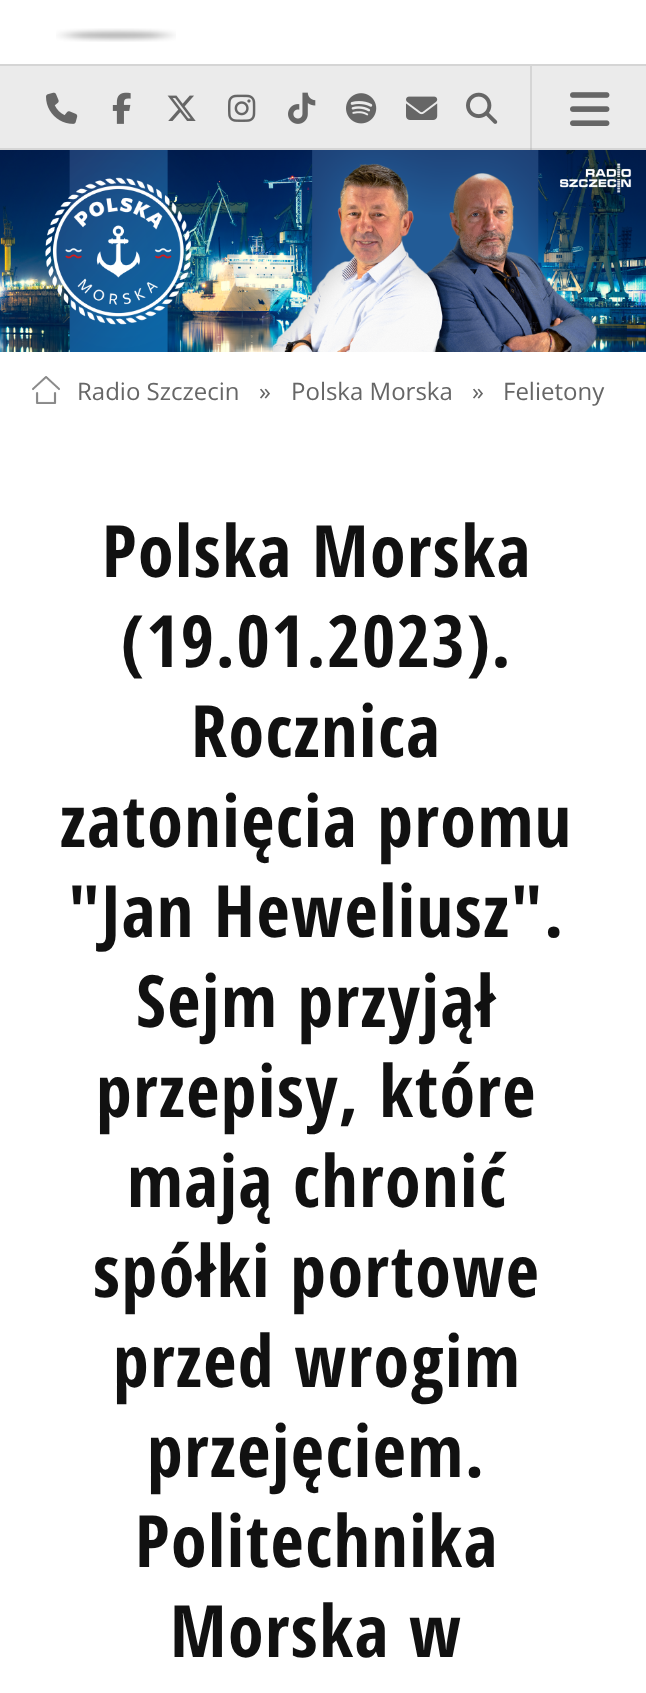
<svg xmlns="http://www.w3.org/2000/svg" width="646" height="1693">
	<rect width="100%" height="100%" fill="#FFFFFF" />
	<image x="56" y="28" width="120" height="14" href="assets/img1.png" />
	<rect x="0" y="66" width="646" height="82" fill="#EBEBEB" />
	<rect x="530" y="66" width="2" height="84" fill="#D5D5D5" />
	<rect x="0" y="64" width="646" height="2" fill="#D5D5D5" />
	<rect x="0" y="148" width="646" height="2" fill="#D5D5D5" />
	<rect x="530" y="148" width="2" height="2" fill="#C5C5C5" />
	<image x="46" y="92" width="32" height="32" href="assets/img2.png" />
	<image x="112" y="92" width="19" height="32" href="assets/img3.png" />
	<image x="167" y="95" width="29" height="26" href="assets/img4.png" />
	<image x="228" y="94" width="28" height="28" href="assets/img5.png" />
	<image x="288" y="92" width="28" height="32" href="assets/img6.png" />
	<image x="346" y="93" width="31" height="31" href="assets/img7.png" />
	<image x="406" y="96" width="32" height="24" href="assets/img8.png" />
	<image x="466" y="92" width="32" height="32" href="assets/img9.png" />
	<image x="570" y="92" width="40" height="34" href="assets/img10.png" />
	<image x="0" y="150" width="646" height="202" href="assets/img11.png" />
	<image x="32" y="376" width="28" height="28" href="assets/img12.png" />
	<g font-family="Open Sans" font-size="24" fill="#666666">
		<text x="77" y="400">Radio Szczecin</text>
		<text x="259" y="400">»</text>
		<text x="291" y="400">Polska Morska</text>
		<text x="472" y="400">»</text>
		<text x="503" y="400">Felietony</text>
	</g>
	<g font-family="Open Sans Condensed" font-size="72" font-weight="700" letter-spacing="1.5" fill="#111111">
		<text x="102" y="577">Polska Morska</text>
		<text x="121" y="667">(19.01.2023).</text>
		<text x="191" y="757">Rocznica</text>
		<text x="60" y="847">zatonięcia promu</text>
		<text x="68" y="937">"Jan Heweliusz".</text>
		<text x="136" y="1027">Sejm przyjął</text>
		<text x="96" y="1117">przepisy, które</text>
		<text x="127" y="1207">mają chronić</text>
		<text x="93" y="1297">spółki portowe</text>
		<text x="113" y="1387">przed wrogim</text>
		<text x="147" y="1477">przejęciem.</text>
		<text x="135" y="1567">Politechnika</text>
		<text x="170" y="1657">Morska w</text>
	</g>
</svg>
